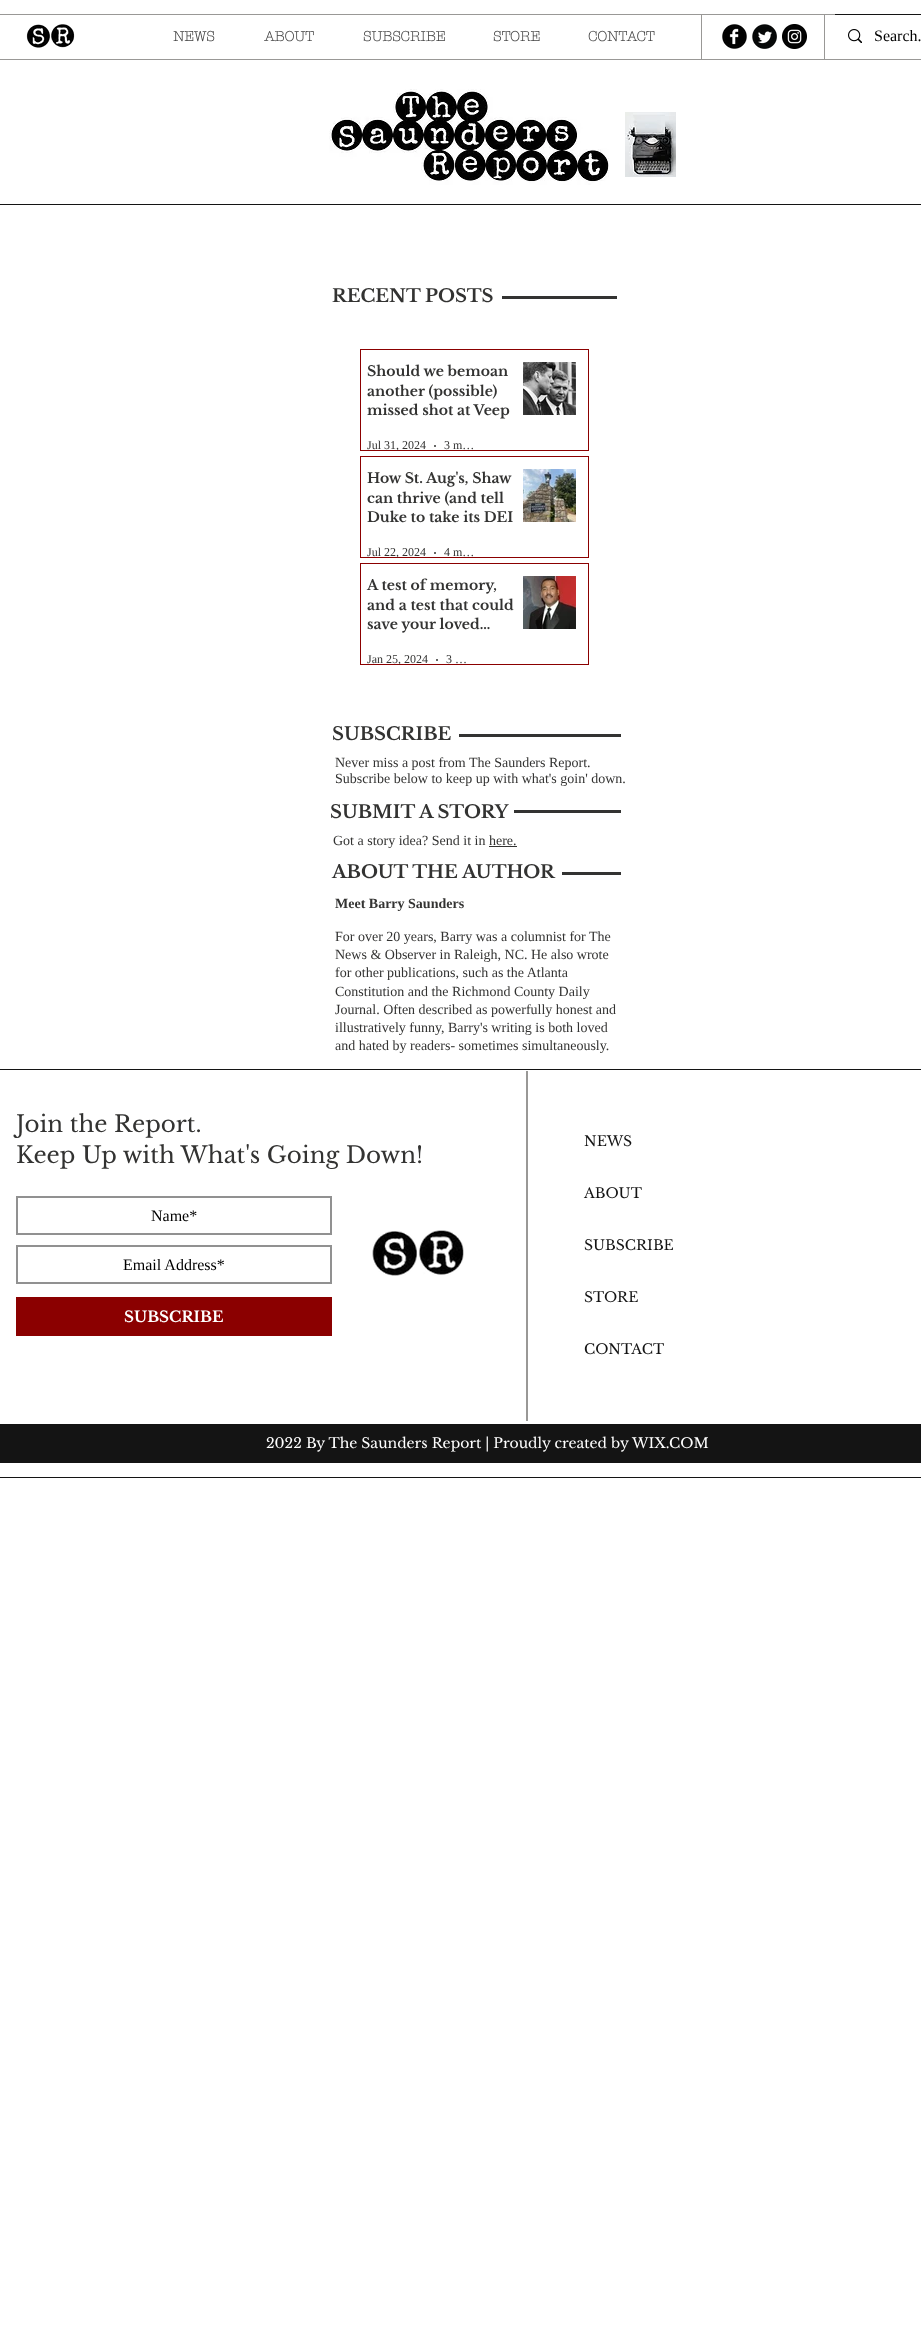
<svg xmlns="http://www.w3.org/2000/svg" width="921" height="2332">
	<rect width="100%" height="100%" fill="#FFFFFF" />
	<rect x="835" y="14" width="86" height="1" fill="#141414" />
	<rect x="0" y="204" width="921" height="1" fill="#141414" />
	<rect x="0" y="14" width="835" height="1" fill="#999896" />
	<rect x="701" y="15" width="1" height="45" fill="#999896" />
	<image x="26" y="24" width="49" height="24" href="assets/img1.png" />
	<g font-family="'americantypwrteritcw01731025'" font-size="14" font-weight="700" fill="#444444">
		<text x="173" y="41">NEWS</text>
		<text x="264" y="41">ABOUT</text>
		<text x="363" y="41">SUBSCRIBE</text>
		<text x="493" y="41">STORE</text>
		<text x="588" y="41">CONTACT</text>
	</g>
	<image x="722" y="24" width="25" height="25" href="assets/img2.png" />
	<image x="752" y="24" width="25" height="25" href="assets/img3.png" />
	<image x="782" y="24" width="25" height="25" href="assets/img4.png" />
	<rect x="824" y="14" width="1" height="45" fill="#999896" />
	<image x="848" y="29" width="14" height="14" href="assets/img5.png" />
	<text x="874" y="41" font-family="Liberation Serif" font-size="16" fill="#000000">Search.</text>
	<rect x="0" y="59" width="921" height="1" fill="#999896" />
	<image x="329" y="89" width="280" height="96" href="assets/img6.png" />
	<image x="625" y="112" width="51" height="65" href="assets/img7.png" />
	<text x="332" y="302" font-family="Libre Baskerville" font-size="18" font-weight="700" fill="#333332">RECENT POSTS</text>
	<rect x="502" y="296" width="115" height="3" fill="#333332" />
	<rect x="360.5" y="349.5" width="228" height="101" fill="none" stroke="#8B0000" />
	<g font-family="Libre Baskerville" font-size="14" font-weight="700" fill="#333332">
		<text x="367" y="376">Should we bemoan</text>
		<text x="367" y="396">another (possible)</text>
		<text x="367" y="415">missed shot at Veep</text>
	</g>
	<text x="367" y="449" font-family="Liberation Serif" font-size="12" fill="#333332">Jul 31, 2024</text>
	<circle cx="435" cy="446" r="1" fill="#333332" />
	<text x="444" y="449" font-family="Liberation Serif" font-size="12" fill="#333332">3 m…</text>
	<image x="523" y="362" width="53" height="53" href="assets/img8.png" />
	<rect x="360.5" y="456.5" width="228" height="101" fill="none" stroke="#8B0000" />
	<g font-family="Libre Baskerville" font-size="14" font-weight="700" fill="#333332">
		<text x="367" y="483">How St. Aug's, Shaw</text>
		<text x="367" y="503">can thrive (and tell</text>
		<text x="367" y="522">Duke to take its DEI</text>
	</g>
	<text x="367" y="556" font-family="Liberation Serif" font-size="12" fill="#333332">Jul 22, 2024</text>
	<circle cx="435" cy="553" r="1" fill="#333332" />
	<text x="444" y="556" font-family="Liberation Serif" font-size="12" fill="#333332">4 m…</text>
	<image x="523" y="469" width="53" height="53" href="assets/img9.png" />
	<rect x="360.5" y="563.5" width="228" height="101" fill="none" stroke="#8B0000" />
	<g font-family="Libre Baskerville" font-size="14" font-weight="700" fill="#333332">
		<text x="367" y="590">A test of memory,</text>
		<text x="367" y="610">and a test that could</text>
		<text x="367" y="629">save your loved…</text>
	</g>
	<text x="367" y="663" font-family="Liberation Serif" font-size="12" fill="#333332">Jan 25, 2024</text>
	<circle cx="437" cy="660" r="1" fill="#333332" />
	<text x="446" y="663" font-family="Liberation Serif" font-size="12" fill="#333332">3 …</text>
	<image x="523" y="576" width="53" height="53" href="assets/img10.png" />
	<text x="332" y="740" font-family="Libre Baskerville" font-size="18" font-weight="700" fill="#333332">SUBSCRIBE</text>
	<rect x="459" y="734" width="162" height="3" fill="#333332" />
	<g font-family="Liberation Serif" font-size="14" fill="#333332">
		<text x="335" y="767">Never miss a post from The Saunders Report.</text>
		<text x="335" y="783">Subscribe below to keep up with what's goin' down.</text>
	</g>
	<text x="330" y="818" font-family="Libre Baskerville" font-size="18" font-weight="700" fill="#333332">SUBMIT A STORY</text>
	<rect x="514" y="810" width="107" height="3" fill="#333332" />
	<text x="333" y="845" font-family="Liberation Serif" font-size="14" fill="#333332">Got a story idea? Send it in here.</text>
	<rect x="489" y="846" width="28" height="1" fill="#333332" />
	<text x="332" y="878" font-family="Libre Baskerville" font-size="18" font-weight="700" fill="#333332">ABOUT THE AUTHOR</text>
	<rect x="562" y="872" width="59" height="3" fill="#333332" />
	<text x="335" y="908" font-family="Liberation Serif" font-size="14" font-weight="700" fill="#333332">Meet Barry Saunders</text>
	<g font-family="Liberation Serif" font-size="14" fill="#333332">
		<text x="335" y="941">For over 20 years, Barry was a columnist for The</text>
		<text x="335" y="959">News &amp; Observer in Raleigh, NC. He also wrote</text>
		<text x="335" y="977">for other publications, such as the Atlanta</text>
		<text x="335" y="996">Constitution and the Richmond County Daily</text>
		<text x="335" y="1014">Journal. Often described as powerfully honest and</text>
		<text x="335" y="1032">illustratively funny, Barry's writing is both loved</text>
		<text x="335" y="1050">and hated by readers- sometimes simultaneously.</text>
	</g>
	<rect x="0" y="1069" width="921" height="1" fill="#141414" />
	<rect x="0" y="1477" width="921" height="1" fill="#141414" />
	<g font-family="Libre Baskerville" font-size="23" fill="#333332">
		<text x="16" y="1132">Join the Report.</text>
		<text x="16" y="1163">Keep Up with What's Going Down!</text>
	</g>
	<rect x="17" y="1197" width="314" height="37" fill="none" stroke="#919191" stroke-width="2" />
	<text x="151" y="1221" font-family="Liberation Serif" font-size="16" fill="#000000">Name*</text>
	<rect x="17" y="1246" width="314" height="37" fill="none" stroke="#919191" stroke-width="2" />
	<text x="123" y="1270" font-family="Liberation Serif" font-size="16" fill="#000000">Email Address*</text>
	<image x="372" y="1230" width="92" height="46" href="assets/img11.png" />
	<rect x="16" y="1297" width="316" height="39" fill="#8B0000" />
	<text x="124" y="1322" font-family="Libre Baskerville" font-size="15" font-weight="700" fill="#FFFFFF">SUBSCRIBE</text>
	<rect x="526" y="1071" width="2" height="350" fill="#999896" />
	<g font-family="Libre Baskerville" font-size="14" fill="#141414">
		<text x="584" y="1146">NEWS</text>
		<text x="584" y="1198">ABOUT</text>
		<text x="584" y="1250">SUBSCRIBE</text>
		<text x="584" y="1302">STORE</text>
		<text x="584" y="1354">CONTACT</text>
	</g>
	<rect x="0" y="1424" width="921" height="39" fill="#141414" />
	<text x="266" y="1448" font-family="Libre Baskerville" font-size="14" fill="#FFFFFF">2022 By The Saunders Report | Proudly created by WIX.COM</text>
</svg>
